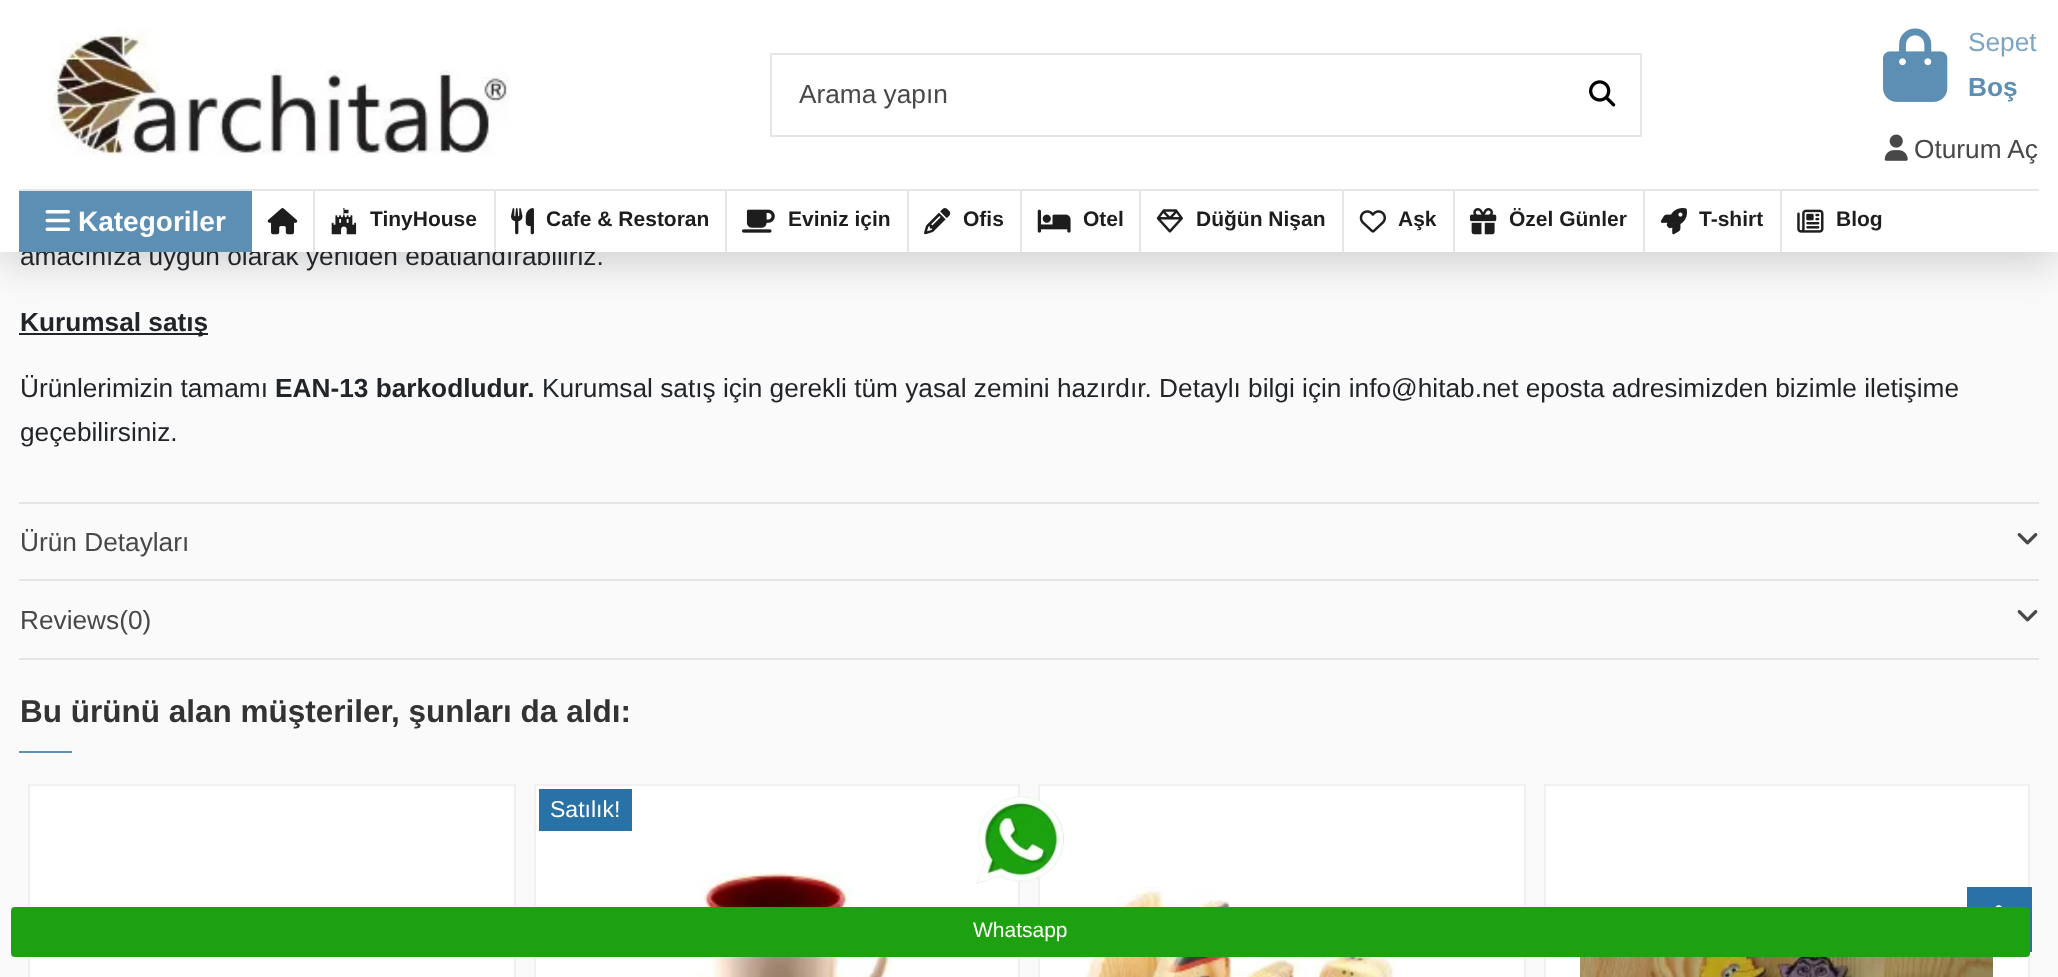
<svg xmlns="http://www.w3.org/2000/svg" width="2058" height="977">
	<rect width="100%" height="100%" fill="#FAFAFA" />
	<rect x="0" y="9" width="2058" height="252" fill="#000000" fill-opacity="0.18" filter="blur(22px)" />
	<text x="20" y="265" font-family="Liberation Sans" font-size="26.25" fill="#212529">amacınıza uygun olarak yeniden ebatlandırabiliriz.</text>
	<rect x="0" y="0" width="2058" height="252" fill="#FFFFFF" />
	<image x="50" y="29" width="459" height="127" href="assets/img1.png" />
	<rect x="771" y="54" width="870" height="82" fill="none" stroke="#E6E6E6" stroke-width="2" />
	<text x="799" y="103" font-family="Liberation Sans" font-size="26.25" fill="#484848">Arama yapın</text>
	<image x="1589" y="80" width="27" height="27" href="assets/img2.png" />
	<image x="1883" y="28" width="65" height="74" href="assets/img3.png" />
	<text x="1968" y="51" font-family="Liberation Sans" font-size="26.25" fill="#7DA5C2">Sepet</text>
	<text x="1968" y="96" font-family="Liberation Sans" font-size="26.25" font-weight="700" fill="#5D8EB3">Boş</text>
	<image x="1884" y="134" width="24" height="27" href="assets/img4.png" />
	<text x="1914" y="158" font-family="Liberation Sans" font-size="26.25" fill="#484848">Oturum Aç</text>
	<rect x="19" y="189" width="2020" height="2" fill="#E6E6E6" />
	<rect x="19" y="191" width="233" height="61" fill="#5D8EB3" />
	<image x="45" y="210" width="25" height="21" href="assets/img5.png" />
	<text x="78" y="231" font-family="Liberation Sans" font-size="28" font-weight="700" fill="#FFFFFF">Kategoriler</text>
	<image x="267" y="208" width="31" height="27" href="assets/img6.png" />
	<rect x="313" y="191" width="2" height="61" fill="#E6E6E6" />
	<image x="331" y="208" width="26" height="27" href="assets/img7.png" />
	<text x="370" y="226" font-family="Liberation Sans" font-size="21" font-weight="700" fill="#1D1D1D">TinyHouse</text>
	<rect x="494" y="191" width="2" height="61" fill="#E6E6E6" />
	<image x="511" y="208" width="23" height="27" href="assets/img8.png" />
	<text x="546" y="226" font-family="Liberation Sans" font-size="21" font-weight="700" fill="#1D1D1D">Cafe &amp; Restoran</text>
	<rect x="725" y="191" width="2" height="61" fill="#E6E6E6" />
	<image x="742" y="209" width="33" height="24" href="assets/img9.png" />
	<text x="788" y="226" font-family="Liberation Sans" font-size="21" font-weight="700" fill="#1D1D1D">Eviniz için</text>
	<rect x="907" y="191" width="2" height="61" fill="#E6E6E6" />
	<image x="924" y="208" width="27" height="27" href="assets/img10.png" />
	<text x="963" y="226" font-family="Liberation Sans" font-size="21" font-weight="700" fill="#1D1D1D">Ofis</text>
	<rect x="1020" y="191" width="2" height="61" fill="#E6E6E6" />
	<image x="1037" y="209" width="34" height="24" href="assets/img11.png" />
	<text x="1083" y="226" font-family="Liberation Sans" font-size="21" font-weight="700" fill="#1D1D1D">Otel</text>
	<rect x="1139" y="191" width="2" height="61" fill="#E6E6E6" />
	<image x="1156" y="209" width="27" height="24" href="assets/img12.png" />
	<text x="1196" y="226" font-family="Liberation Sans" font-size="21" font-weight="700" fill="#1D1D1D">Düğün Nişan</text>
	<rect x="1342" y="191" width="2" height="61" fill="#E6E6E6" />
	<image x="1359" y="210" width="27" height="23" href="assets/img13.png" />
	<text x="1398" y="226" font-family="Liberation Sans" font-size="21" font-weight="700" fill="#1D1D1D">Aşk</text>
	<rect x="1453" y="191" width="2" height="61" fill="#E6E6E6" />
	<image x="1470" y="208" width="27" height="27" href="assets/img14.png" />
	<text x="1509" y="226" font-family="Liberation Sans" font-size="21" font-weight="700" fill="#1D1D1D">Özel Günler</text>
	<rect x="1643" y="191" width="2" height="61" fill="#E6E6E6" />
	<image x="1660" y="208" width="27" height="27" href="assets/img15.png" />
	<text x="1699" y="226" font-family="Liberation Sans" font-size="21" font-weight="700" fill="#1D1D1D">T-shirt</text>
	<rect x="1780" y="191" width="2" height="61" fill="#E6E6E6" />
	<image x="1797" y="209" width="27" height="24" href="assets/img16.png" />
	<text x="1836" y="226" font-family="Liberation Sans" font-size="21" font-weight="700" fill="#1D1D1D">Blog</text>
	<rect x="19" y="502" width="2020" height="2" fill="#E4E4E4" />
	<rect x="19" y="333" width="189" height="2" fill="#212529" />
	<text x="20" y="331" font-family="Liberation Sans" font-size="26.25" font-weight="700" fill="#212529">Kurumsal satış</text>
	<text x="20" y="397" font-family="Liberation Sans" font-size="26.25" fill="#212529">Ürünlerimizin tamamı</text>
	<text x="275" y="397" font-family="Liberation Sans" font-size="26.25" font-weight="700" fill="#212529">EAN-13 barkodludur.</text>
	<g font-family="Liberation Sans" font-size="26.25" fill="#212529">
		<text x="542" y="397">Kurumsal satış için gerekli tüm yasal zemini hazırdır. Detaylı bilgi için info@hitab.net eposta adresimizden bizimle iletişime</text>
		<text x="20" y="441">geçebilirsiniz.</text>
	</g>
	<rect x="19" y="579" width="2020" height="2" fill="#E4E4E4" />
	<text x="20" y="551" font-family="Liberation Sans" font-size="26.25" fill="#484848">Ürün Detayları</text>
	<image x="2017" y="533" width="21" height="12" href="assets/img17.png" />
	<rect x="19" y="658" width="2020" height="2" fill="#E4E4E4" />
	<text x="20" y="629" font-family="Liberation Sans" font-size="26.25" fill="#484848">Reviews(0)</text>
	<image x="2017" y="610" width="21" height="12" href="assets/img17.png" />
	<text x="20" y="722" font-family="Liberation Sans" font-size="31.5" font-weight="700" fill="#333333">Bu ürünü alan müşteriler, şunları da aldı:</text>
	<rect x="19" y="751" width="53" height="2" fill="#5D8EB3" />
	<rect x="29" y="785" width="486" height="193" fill="#FFFFFF" stroke="#F0F0F0" stroke-width="2" />
	<rect x="535" y="785" width="484" height="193" fill="#FFFFFF" stroke="#F0F0F0" stroke-width="2" />
	<rect x="539" y="789" width="93" height="42" fill="#2972A7" />
	<text x="550" y="817" font-family="Liberation Sans" font-size="23" fill="#FFFFFF">Satılık!</text>
	<image x="696" y="872" width="197" height="105" href="assets/img18.png" />
	<rect x="1039" y="785" width="486" height="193" fill="#FFFFFF" stroke="#F0F0F0" stroke-width="2" />
	<image x="1085" y="887" width="310" height="90" href="assets/img19.png" />
	<rect x="1545" y="785" width="484" height="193" fill="#FFFFFF" stroke="#F0F0F0" stroke-width="2" />
	<image x="1580" y="957" width="413" height="20" href="assets/img20.png" />
	<image x="976" y="796" width="88" height="88" href="assets/img21.png" />
	<rect x="1967" y="887" width="65" height="65" fill="#2972A7" />
	<rect x="11" y="907" width="2019" height="50" rx="4" fill="#1DA110" />
	<text x="973" y="937" font-family="Liberation Sans" font-size="21" fill="#FFFFFF">Whatsapp</text>
	<image x="1995" y="905" width="7" height="2" href="assets/img22.png" />
</svg>
